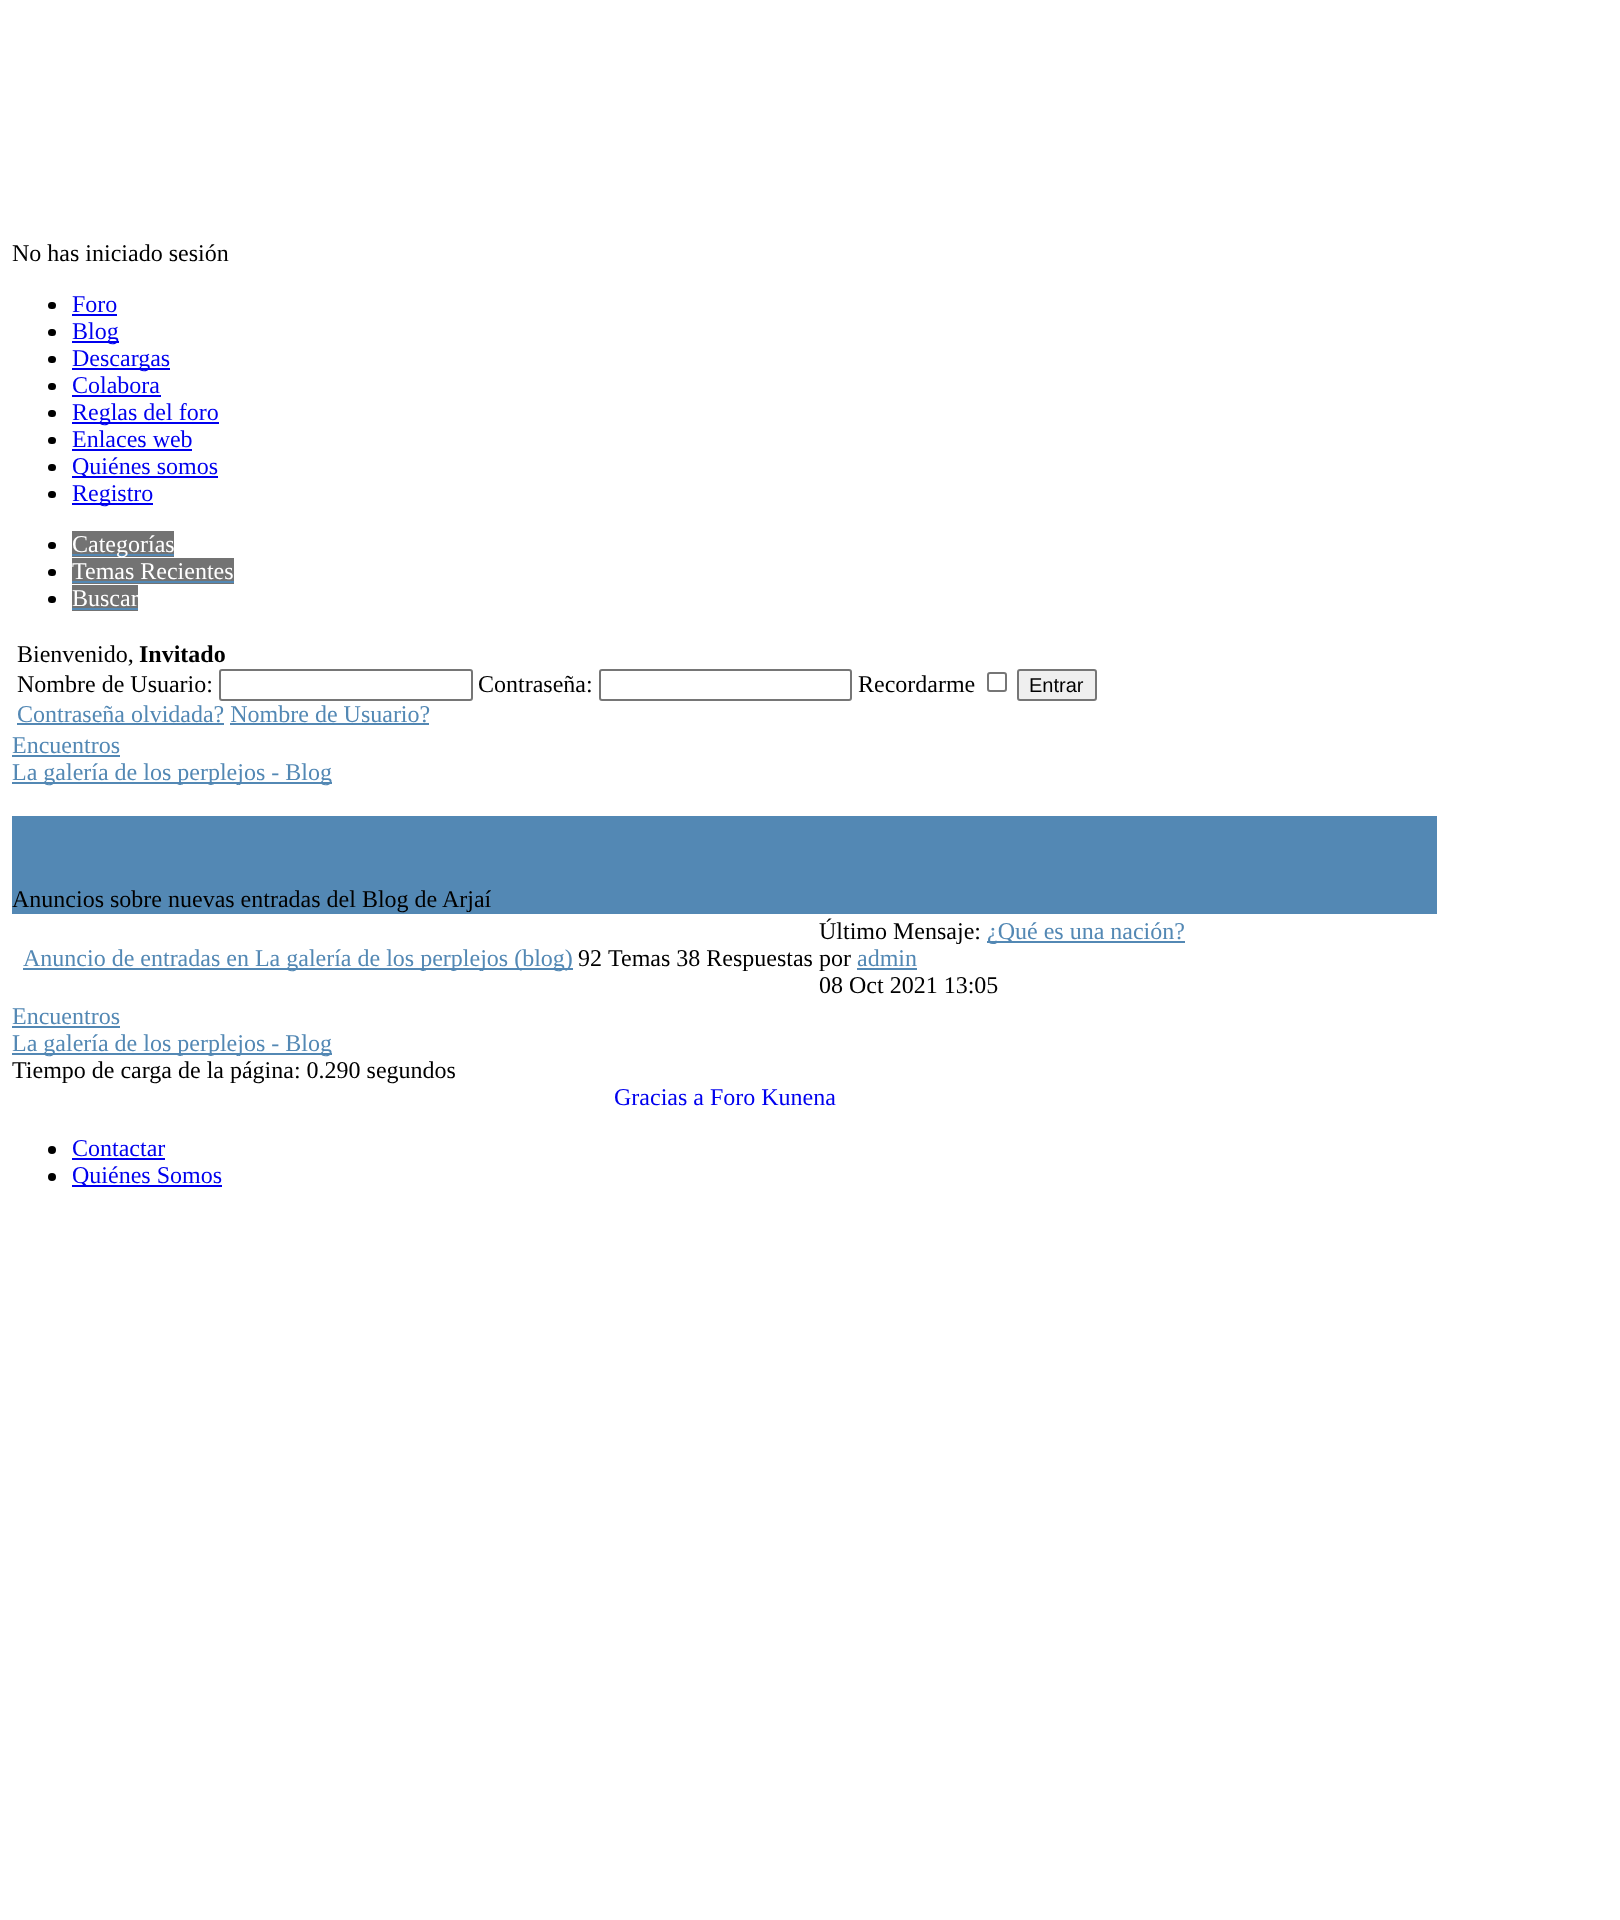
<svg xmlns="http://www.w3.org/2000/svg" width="1620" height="1920">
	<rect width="100%" height="100%" fill="#FFFFFF" />
	<text x="12" y="261" font-family="Liberation Serif" font-size="24" fill="#000000">No has iniciado sesión</text>
	<rect x="48" y="302" width="8" height="7" rx="3.5" fill="#000000" />
	<text x="72" y="312" font-family="Liberation Serif" font-size="24" fill="#0000EE">Foro</text>
	<rect x="72" y="314" width="45" height="2" fill="#0000EE" />
	<rect x="48" y="329" width="8" height="7" rx="3.5" fill="#000000" />
	<rect x="72" y="341" width="47" height="2" fill="#0000EE" />
	<text x="72" y="339" font-family="Liberation Serif" font-size="24" fill="#0000EE">Blog</text>
	<rect x="48" y="356" width="8" height="7" rx="3.5" fill="#000000" />
	<rect x="72" y="368" width="98" height="2" fill="#0000EE" />
	<text x="72" y="366" font-family="Liberation Serif" font-size="24" fill="#0000EE">Descargas</text>
	<rect x="48" y="383" width="8" height="7" rx="3.5" fill="#000000" />
	<text x="72" y="393" font-family="Liberation Serif" font-size="24" fill="#0000EE">Colabora</text>
	<rect x="72" y="395" width="89" height="2" fill="#0000EE" />
	<rect x="48" y="410" width="8" height="7" rx="3.5" fill="#000000" />
	<rect x="72" y="422" width="147" height="2" fill="#0000EE" />
	<text x="72" y="420" font-family="Liberation Serif" font-size="24" fill="#0000EE">Reglas del foro</text>
	<rect x="48" y="437" width="8" height="7" rx="3.5" fill="#000000" />
	<text x="72" y="447" font-family="Liberation Serif" font-size="24" fill="#0000EE">Enlaces web</text>
	<rect x="72" y="449" width="120" height="2" fill="#0000EE" />
	<rect x="48" y="464" width="8" height="7" rx="3.5" fill="#000000" />
	<rect x="72" y="476" width="146" height="2" fill="#0000EE" />
	<text x="72" y="474" font-family="Liberation Serif" font-size="24" fill="#0000EE">Quiénes somos</text>
	<rect x="48" y="491" width="8" height="7" rx="3.5" fill="#000000" />
	<rect x="72" y="503" width="81" height="2" fill="#0000EE" />
	<text x="72" y="501" font-family="Liberation Serif" font-size="24" fill="#0000EE">Registro</text>
	<rect x="48" y="542" width="8" height="7" rx="3.5" fill="#000000" />
	<rect x="72" y="531" width="102" height="26" fill="#737373" />
	<rect x="72" y="554" width="102" height="2" fill="#5388B4" />
	<text x="72" y="552" font-family="Liberation Serif" font-size="24" fill="#FFFFFF">Categorías</text>
	<rect x="48" y="569" width="8" height="7" rx="3.5" fill="#000000" />
	<rect x="72" y="558" width="162" height="26" fill="#737373" />
	<text x="72" y="579" font-family="Liberation Serif" font-size="24" fill="#FFFFFF">Temas Recientes</text>
	<rect x="72" y="581" width="162" height="2" fill="#5388B4" />
	<rect x="48" y="596" width="8" height="7" rx="3.5" fill="#000000" />
	<rect x="72" y="585" width="66" height="26" fill="#737373" />
	<text x="72" y="606" font-family="Liberation Serif" font-size="24" fill="#FFFFFF">Buscar</text>
	<rect x="72" y="608" width="66" height="2" fill="#5388B4" />
	<text x="17" y="662" font-family="Liberation Serif" font-size="24" fill="#000000">Bienvenido,</text>
	<text x="139" y="662" font-family="Liberation Serif" font-size="24" font-weight="700" fill="#000000">Invitado</text>
	<text x="17" y="692" font-family="Liberation Serif" font-size="24" fill="#000000">Nombre de Usuario:</text>
	<rect x="220" y="670" width="252" height="30" rx="2" fill="none" stroke="#767676" stroke-width="2" />
	<text x="478" y="692" font-family="Liberation Serif" font-size="24" fill="#000000">Contraseña:</text>
	<rect x="600" y="670" width="251" height="30" rx="2" fill="none" stroke="#767676" stroke-width="2" />
	<text x="858" y="692" font-family="Liberation Serif" font-size="24" fill="#000000">Recordarme</text>
	<rect x="988" y="673" width="18" height="18" rx="2" fill="none" stroke="#767676" stroke-width="2" />
	<rect x="1018" y="670" width="78" height="30" rx="2" fill="#EFEFEF" stroke="#767676" stroke-width="2" />
	<text x="1029" y="692" font-family="Liberation Sans" font-size="20" fill="#000000">Entrar</text>
	<text x="17" y="722" font-family="Liberation Serif" font-size="24" fill="#5388B4">Contraseña olvidada? Nombre de Usuario?</text>
	<rect x="17" y="723" width="207" height="2" fill="#5388B4" />
	<rect x="230" y="723" width="199" height="2" fill="#5388B4" />
	<text x="12" y="753" font-family="Liberation Serif" font-size="24" fill="#5388B4">Encuentros</text>
	<rect x="12" y="755" width="108" height="2" fill="#5388B4" />
	<rect x="12" y="782" width="320" height="2" fill="#5388B4" />
	<text x="12" y="780" font-family="Liberation Serif" font-size="24" fill="#5388B4">La galería de los perplejos - Blog</text>
	<rect x="12" y="816" width="1425" height="98" fill="#5388B4" />
	<text x="12" y="907" font-family="Liberation Serif" font-size="24" fill="#000000">Anuncios sobre nuevas entradas del Blog de Arjaí</text>
	<rect x="23" y="968" width="550" height="2" fill="#5388B4" />
	<text x="23" y="966" font-family="Liberation Serif" font-size="24" fill="#5388B4">Anuncio de entradas en La galería de los perplejos (blog)</text>
	<g font-family="Liberation Serif" font-size="24" fill="#000000">
		<text x="578" y="966">92</text>
		<text x="608" y="966">Temas 38 Respuestas por</text>
		<text x="819" y="939">Último Mensaje:</text>
	</g>
	<rect x="987" y="941" width="198" height="2" fill="#5388B4" />
	<g font-family="Liberation Serif" font-size="24" fill="#5388B4">
		<text x="987" y="939">¿Qué es una nación?</text>
		<text x="857" y="966">admin</text>
	</g>
	<rect x="857" y="968" width="60" height="2" fill="#5388B4" />
	<text x="819" y="993" font-family="Liberation Serif" font-size="24" fill="#000000">08 Oct 2021 13:05</text>
	<text x="12" y="1024" font-family="Liberation Serif" font-size="24" fill="#5388B4">Encuentros</text>
	<rect x="12" y="1026" width="108" height="2" fill="#5388B4" />
	<rect x="12" y="1053" width="320" height="2" fill="#5388B4" />
	<text x="12" y="1051" font-family="Liberation Serif" font-size="24" fill="#5388B4">La galería de los perplejos - Blog</text>
	<text x="12" y="1078" font-family="Liberation Serif" font-size="24" fill="#000000">Tiempo de carga de la página: 0.290 segundos</text>
	<text x="614" y="1105" font-family="Liberation Serif" font-size="24" fill="#0000EE">Gracias a Foro Kunena</text>
	<circle cx="52" cy="1150" r="4" fill="#000000" />
	<text x="72" y="1156" font-family="Liberation Serif" font-size="24" fill="#0000EE">Contactar</text>
	<rect x="72" y="1158" width="93" height="2" fill="#0000EE" />
	<circle cx="52" cy="1177" r="4" fill="#000000" />
	<rect x="72" y="1185" width="150" height="2" fill="#0000EE" />
	<text x="72" y="1183" font-family="Liberation Serif" font-size="24" fill="#0000EE">Quiénes Somos</text>
</svg>
